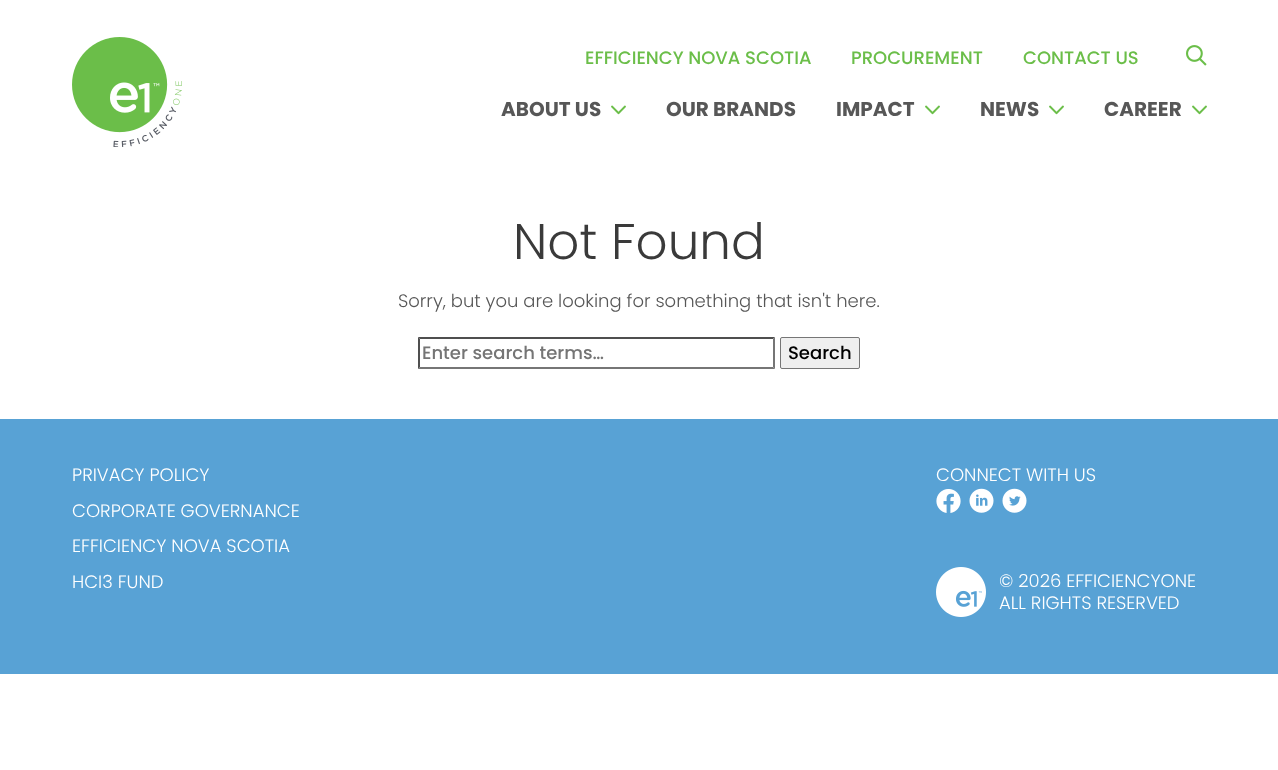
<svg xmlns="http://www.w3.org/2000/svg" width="1278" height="770">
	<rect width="100%" height="100%" fill="#FFFFFF" />
	<image x="72" y="37" width="110" height="110" href="assets/img1.png" />
	<g font-family="Poppins" font-size="18" font-weight="500" fill="#6BBE49">
		<text x="585" y="64">EFFICIENCY NOVA SCOTIA</text>
		<text x="851" y="64">PROCUREMENT</text>
		<text x="1023" y="64">CONTACT US</text>
	</g>
	<image x="1186" y="45" width="21" height="21" href="assets/img2.png" />
	<text x="501" y="116" font-family="Poppins" font-size="20" font-weight="700" fill="#575757">ABOUT US</text>
	<image x="611" y="105" width="15" height="10" href="assets/img3.png" />
	<g font-family="Poppins" font-size="20" font-weight="700" fill="#575757">
		<text x="666" y="116">OUR BRANDS</text>
		<text x="836" y="116">IMPACT</text>
	</g>
	<image x="925" y="105" width="15" height="10" href="assets/img3.png" />
	<text x="980" y="116" font-family="Poppins" font-size="20" font-weight="700" fill="#575757">NEWS</text>
	<image x="1049" y="105" width="15" height="10" href="assets/img3.png" />
	<text x="1104" y="116" font-family="Poppins" font-size="20" font-weight="700" fill="#575757">CAREER</text>
	<image x="1192" y="105" width="15" height="10" href="assets/img3.png" />
	<text x="513" y="259" font-family="Poppins" font-size="50" font-weight="300" fill="#3A3A3A">Not Found</text>
	<text x="398" y="307" font-family="Poppins" font-size="18" font-weight="300" fill="#575757">Sorry, but you are looking for something that isn't here.</text>
	<path d="M418 337H775L773 339H420Z" fill="#4F4F4F" />
	<path d="M775 337V369L773 367V339Z" fill="#767676" />
	<path d="M775 369H418L420 367H773Z" fill="#767676" />
	<path d="M418 369V337L420 339V367Z" fill="#4F4F4F" />
	<text x="422" y="359" font-family="Poppins" font-size="18" font-weight="500" fill="#757575">Enter search terms…</text>
	<rect x="780.5" y="337.5" width="79" height="31" rx="1.5" fill="#EFEFEF" stroke="#767676" />
	<text x="788" y="359" font-family="Poppins" font-size="18" font-weight="500" fill="#000000">Search</text>
	<rect x="0" y="419" width="1278" height="255" fill="#58A2D5" />
	<g font-family="Poppins" font-size="18" font-weight="300" fill="#FFFFFF">
		<text x="72" y="481">PRIVACY POLICY</text>
		<text x="72" y="517">CORPORATE GOVERNANCE</text>
		<text x="72" y="552">EFFICIENCY NOVA SCOTIA</text>
		<text x="72" y="588">HCI3 FUND</text>
		<text x="936" y="481">CONNECT WITH US</text>
	</g>
	<image x="936" y="489" width="25" height="24" href="assets/img4.png" />
	<image x="969" y="488" width="25" height="25" href="assets/img5.png" />
	<image x="1002" y="488" width="25" height="25" href="assets/img6.png" />
	<image x="936" y="567" width="50" height="50" href="assets/img7.png" />
	<g font-family="Poppins" font-size="18" font-weight="300" fill="#FFFFFF">
		<text x="999" y="587">© 2026 EFFICIENCYONE</text>
		<text x="999" y="609">ALL RIGHTS RESERVED</text>
	</g>
</svg>
